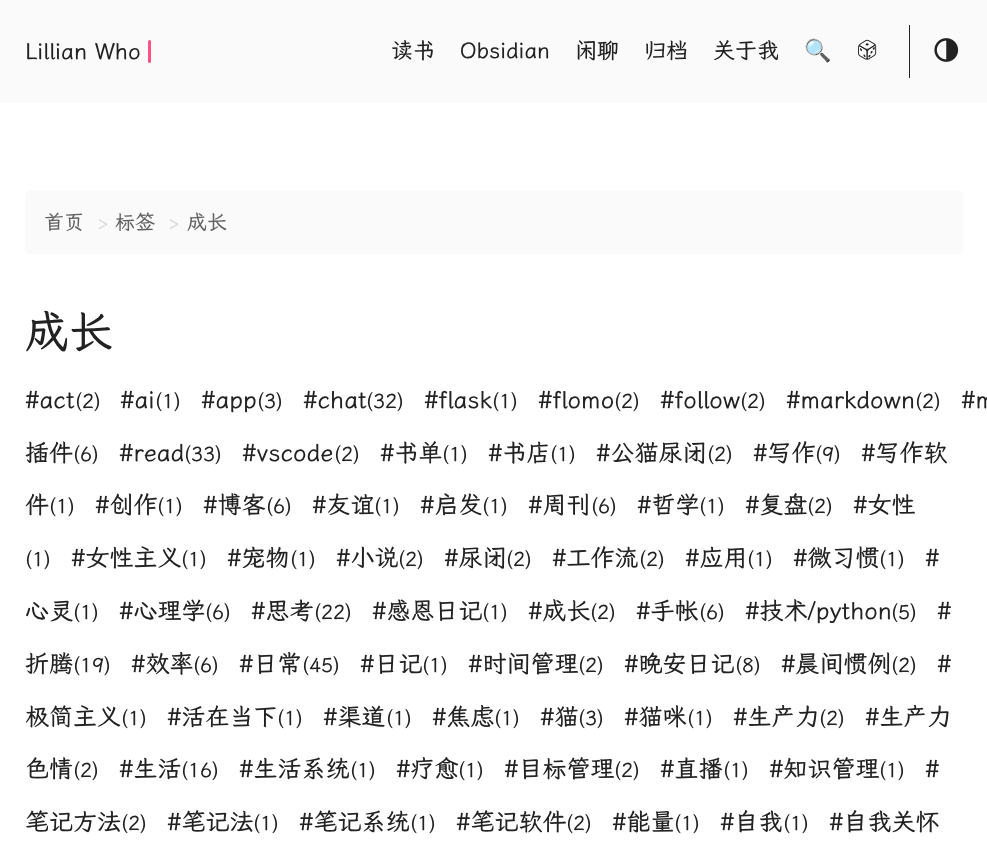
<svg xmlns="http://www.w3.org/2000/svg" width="987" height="849">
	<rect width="100%" height="100%" fill="#FFFFFF" />
	<rect x="0" y="0" width="987" height="103" fill="#FAFAFA" />
	<text x="25" y="59" font-family="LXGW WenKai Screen" font-size="22.5" fill="#222222">Lillian Who</text>
	<rect x="148" y="40" width="3" height="23" rx="1.5" fill="#FE5186" />
	<rect x="909" y="25" width="1" height="53" fill="#222222" />
	<g font-family="LXGW WenKai Screen" font-size="22" fill="#222222">
		<text x="391" y="58">读书</text>
		<text x="460" y="58">Obsidian</text>
		<text x="575" y="58">闲聊</text>
		<text x="644" y="58">归档</text>
		<text x="713" y="58">关于我</text>
	</g>
	<text x="804" y="58" font-family="Noto Color Emoji" font-size="22" fill="#222222">🔍</text>
	<image x="858" y="39" width="19" height="21" href="assets/img1.png" />
	<image x="934" y="38" width="25" height="24" href="assets/img2.png" />
	<rect x="25" y="190" width="938" height="64" rx="5" fill="#FAFAFA" />
	<text x="44" y="229" font-family="LXGW WenKai Screen" font-size="20" fill="#636363">首页</text>
	<text x="97" y="229" font-family="LXGW WenKai Screen" font-size="20" fill="#DADADA">&gt;</text>
	<text x="115" y="229" font-family="LXGW WenKai Screen" font-size="20" fill="#636363">标签</text>
	<text x="168" y="229" font-family="LXGW WenKai Screen" font-size="20" fill="#DADADA">&gt;</text>
	<text x="187" y="229" font-family="LXGW WenKai Screen" font-size="20" fill="#636363">成长</text>
	<text x="25" y="347" font-family="LXGW WenKai Screen" font-size="44" fill="#222222">成长</text>
	<text x="25" y="408" font-family="LXGW WenKai Screen" font-size="24" fill="#222222">#act</text>
	<text x="75" y="408" font-family="LXGW WenKai Screen" font-size="20" fill="#222222">(2)</text>
	<text x="120" y="408" font-family="LXGW WenKai Screen" font-size="24" fill="#222222">#ai</text>
	<text x="155" y="408" font-family="LXGW WenKai Screen" font-size="20" fill="#222222">(1)</text>
	<text x="201" y="408" font-family="LXGW WenKai Screen" font-size="24" fill="#222222">#app</text>
	<text x="257" y="408" font-family="LXGW WenKai Screen" font-size="20" fill="#222222">(3)</text>
	<text x="303" y="408" font-family="LXGW WenKai Screen" font-size="24" fill="#222222">#chat</text>
	<text x="366" y="408" font-family="LXGW WenKai Screen" font-size="20" fill="#222222">(32)</text>
	<text x="424" y="408" font-family="LXGW WenKai Screen" font-size="24" fill="#222222">#flask</text>
	<text x="492" y="408" font-family="LXGW WenKai Screen" font-size="20" fill="#222222">(1)</text>
	<text x="538" y="408" font-family="LXGW WenKai Screen" font-size="24" fill="#222222">#flomo</text>
	<text x="614" y="408" font-family="LXGW WenKai Screen" font-size="20" fill="#222222">(2)</text>
	<text x="660" y="408" font-family="LXGW WenKai Screen" font-size="24" fill="#222222">#follow</text>
	<text x="740" y="408" font-family="LXGW WenKai Screen" font-size="20" fill="#222222">(2)</text>
	<text x="786" y="408" font-family="LXGW WenKai Screen" font-size="24" fill="#222222">#markdown</text>
	<text x="915" y="408" font-family="LXGW WenKai Screen" font-size="20" fill="#222222">(2)</text>
	<g font-family="LXGW WenKai Screen" font-size="24" fill="#222222">
		<text x="961" y="408">#m</text>
		<text x="25" y="461">插件</text>
	</g>
	<text x="73" y="461" font-family="LXGW WenKai Screen" font-size="20" fill="#222222">(6)</text>
	<text x="119" y="461" font-family="LXGW WenKai Screen" font-size="24" fill="#222222">#read</text>
	<text x="184" y="461" font-family="LXGW WenKai Screen" font-size="20" fill="#222222">(33)</text>
	<text x="242" y="461" font-family="LXGW WenKai Screen" font-size="24" fill="#222222">#vscode</text>
	<text x="334" y="461" font-family="LXGW WenKai Screen" font-size="20" fill="#222222">(2)</text>
	<text x="380" y="461" font-family="LXGW WenKai Screen" font-size="24" fill="#222222">#书单</text>
	<text x="442" y="461" font-family="LXGW WenKai Screen" font-size="20" fill="#222222">(1)</text>
	<text x="488" y="461" font-family="LXGW WenKai Screen" font-size="24" fill="#222222">#书店</text>
	<text x="550" y="461" font-family="LXGW WenKai Screen" font-size="20" fill="#222222">(1)</text>
	<text x="596" y="461" font-family="LXGW WenKai Screen" font-size="24" fill="#222222">#公猫尿闭</text>
	<text x="707" y="461" font-family="LXGW WenKai Screen" font-size="20" fill="#222222">(2)</text>
	<text x="753" y="461" font-family="LXGW WenKai Screen" font-size="24" fill="#222222">#写作</text>
	<text x="815" y="461" font-family="LXGW WenKai Screen" font-size="20" fill="#222222">(9)</text>
	<g font-family="LXGW WenKai Screen" font-size="24" fill="#222222">
		<text x="861" y="461">#写作软</text>
		<text x="25" y="513">件</text>
	</g>
	<text x="49" y="513" font-family="LXGW WenKai Screen" font-size="20" fill="#222222">(1)</text>
	<text x="95" y="513" font-family="LXGW WenKai Screen" font-size="24" fill="#222222">#创作</text>
	<text x="157" y="513" font-family="LXGW WenKai Screen" font-size="20" fill="#222222">(1)</text>
	<text x="203" y="513" font-family="LXGW WenKai Screen" font-size="24" fill="#222222">#博客</text>
	<text x="266" y="513" font-family="LXGW WenKai Screen" font-size="20" fill="#222222">(6)</text>
	<text x="312" y="513" font-family="LXGW WenKai Screen" font-size="24" fill="#222222">#友谊</text>
	<text x="374" y="513" font-family="LXGW WenKai Screen" font-size="20" fill="#222222">(1)</text>
	<text x="420" y="513" font-family="LXGW WenKai Screen" font-size="24" fill="#222222">#启发</text>
	<text x="482" y="513" font-family="LXGW WenKai Screen" font-size="20" fill="#222222">(1)</text>
	<text x="528" y="513" font-family="LXGW WenKai Screen" font-size="24" fill="#222222">#周刊</text>
	<text x="591" y="513" font-family="LXGW WenKai Screen" font-size="20" fill="#222222">(6)</text>
	<text x="637" y="513" font-family="LXGW WenKai Screen" font-size="24" fill="#222222">#哲学</text>
	<text x="699" y="513" font-family="LXGW WenKai Screen" font-size="20" fill="#222222">(1)</text>
	<text x="745" y="513" font-family="LXGW WenKai Screen" font-size="24" fill="#222222">#复盘</text>
	<text x="807" y="513" font-family="LXGW WenKai Screen" font-size="20" fill="#222222">(2)</text>
	<text x="853" y="513" font-family="LXGW WenKai Screen" font-size="24" fill="#222222">#女性</text>
	<text x="25" y="566" font-family="LXGW WenKai Screen" font-size="20" fill="#222222">(1)</text>
	<text x="71" y="566" font-family="LXGW WenKai Screen" font-size="24" fill="#222222">#女性主义</text>
	<text x="181" y="566" font-family="LXGW WenKai Screen" font-size="20" fill="#222222">(1)</text>
	<text x="227" y="566" font-family="LXGW WenKai Screen" font-size="24" fill="#222222">#宠物</text>
	<text x="290" y="566" font-family="LXGW WenKai Screen" font-size="20" fill="#222222">(1)</text>
	<text x="336" y="566" font-family="LXGW WenKai Screen" font-size="24" fill="#222222">#小说</text>
	<text x="398" y="566" font-family="LXGW WenKai Screen" font-size="20" fill="#222222">(2)</text>
	<text x="444" y="566" font-family="LXGW WenKai Screen" font-size="24" fill="#222222">#尿闭</text>
	<text x="506" y="566" font-family="LXGW WenKai Screen" font-size="20" fill="#222222">(2)</text>
	<text x="552" y="566" font-family="LXGW WenKai Screen" font-size="24" fill="#222222">#工作流</text>
	<text x="639" y="566" font-family="LXGW WenKai Screen" font-size="20" fill="#222222">(2)</text>
	<text x="685" y="566" font-family="LXGW WenKai Screen" font-size="24" fill="#222222">#应用</text>
	<text x="747" y="566" font-family="LXGW WenKai Screen" font-size="20" fill="#222222">(1)</text>
	<text x="793" y="566" font-family="LXGW WenKai Screen" font-size="24" fill="#222222">#微习惯</text>
	<text x="879" y="566" font-family="LXGW WenKai Screen" font-size="20" fill="#222222">(1)</text>
	<g font-family="LXGW WenKai Screen" font-size="24" fill="#222222">
		<text x="925" y="566">#</text>
		<text x="25" y="619">心灵</text>
	</g>
	<text x="73" y="619" font-family="LXGW WenKai Screen" font-size="20" fill="#222222">(1)</text>
	<text x="119" y="619" font-family="LXGW WenKai Screen" font-size="24" fill="#222222">#心理学</text>
	<text x="205" y="619" font-family="LXGW WenKai Screen" font-size="20" fill="#222222">(6)</text>
	<text x="251" y="619" font-family="LXGW WenKai Screen" font-size="24" fill="#222222">#思考</text>
	<text x="314" y="619" font-family="LXGW WenKai Screen" font-size="20" fill="#222222">(22)</text>
	<text x="372" y="619" font-family="LXGW WenKai Screen" font-size="24" fill="#222222">#感恩日记</text>
	<text x="482" y="619" font-family="LXGW WenKai Screen" font-size="20" fill="#222222">(1)</text>
	<text x="528" y="619" font-family="LXGW WenKai Screen" font-size="24" fill="#222222">#成长</text>
	<text x="590" y="619" font-family="LXGW WenKai Screen" font-size="20" fill="#222222">(2)</text>
	<text x="636" y="619" font-family="LXGW WenKai Screen" font-size="24" fill="#222222">#手帐</text>
	<text x="699" y="619" font-family="LXGW WenKai Screen" font-size="20" fill="#222222">(6)</text>
	<text x="745" y="619" font-family="LXGW WenKai Screen" font-size="24" fill="#222222">#技术/python</text>
	<text x="891" y="619" font-family="LXGW WenKai Screen" font-size="20" fill="#222222">(5)</text>
	<g font-family="LXGW WenKai Screen" font-size="24" fill="#222222">
		<text x="937" y="619">#</text>
		<text x="25" y="672">折腾</text>
	</g>
	<text x="73" y="672" font-family="LXGW WenKai Screen" font-size="20" fill="#222222">(19)</text>
	<text x="131" y="672" font-family="LXGW WenKai Screen" font-size="24" fill="#222222">#效率</text>
	<text x="193" y="672" font-family="LXGW WenKai Screen" font-size="20" fill="#222222">(6)</text>
	<text x="239" y="672" font-family="LXGW WenKai Screen" font-size="24" fill="#222222">#日常</text>
	<text x="302" y="672" font-family="LXGW WenKai Screen" font-size="20" fill="#222222">(45)</text>
	<text x="360" y="672" font-family="LXGW WenKai Screen" font-size="24" fill="#222222">#日记</text>
	<text x="422" y="672" font-family="LXGW WenKai Screen" font-size="20" fill="#222222">(1)</text>
	<text x="468" y="672" font-family="LXGW WenKai Screen" font-size="24" fill="#222222">#时间管理</text>
	<text x="578" y="672" font-family="LXGW WenKai Screen" font-size="20" fill="#222222">(2)</text>
	<text x="624" y="672" font-family="LXGW WenKai Screen" font-size="24" fill="#222222">#晚安日记</text>
	<text x="735" y="672" font-family="LXGW WenKai Screen" font-size="20" fill="#222222">(8)</text>
	<text x="781" y="672" font-family="LXGW WenKai Screen" font-size="24" fill="#222222">#晨间惯例</text>
	<text x="891" y="672" font-family="LXGW WenKai Screen" font-size="20" fill="#222222">(2)</text>
	<g font-family="LXGW WenKai Screen" font-size="24" fill="#222222">
		<text x="937" y="672">#</text>
		<text x="25" y="725">极简主义</text>
	</g>
	<text x="121" y="725" font-family="LXGW WenKai Screen" font-size="20" fill="#222222">(1)</text>
	<text x="167" y="725" font-family="LXGW WenKai Screen" font-size="24" fill="#222222">#活在当下</text>
	<text x="277" y="725" font-family="LXGW WenKai Screen" font-size="20" fill="#222222">(1)</text>
	<text x="323" y="725" font-family="LXGW WenKai Screen" font-size="24" fill="#222222">#渠道</text>
	<text x="386" y="725" font-family="LXGW WenKai Screen" font-size="20" fill="#222222">(1)</text>
	<text x="432" y="725" font-family="LXGW WenKai Screen" font-size="24" fill="#222222">#焦虑</text>
	<text x="494" y="725" font-family="LXGW WenKai Screen" font-size="20" fill="#222222">(1)</text>
	<text x="540" y="725" font-family="LXGW WenKai Screen" font-size="24" fill="#222222">#猫</text>
	<text x="578" y="725" font-family="LXGW WenKai Screen" font-size="20" fill="#222222">(3)</text>
	<text x="624" y="725" font-family="LXGW WenKai Screen" font-size="24" fill="#222222">#猫咪</text>
	<text x="687" y="725" font-family="LXGW WenKai Screen" font-size="20" fill="#222222">(1)</text>
	<text x="733" y="725" font-family="LXGW WenKai Screen" font-size="24" fill="#222222">#生产力</text>
	<text x="819" y="725" font-family="LXGW WenKai Screen" font-size="20" fill="#222222">(2)</text>
	<g font-family="LXGW WenKai Screen" font-size="24" fill="#222222">
		<text x="865" y="725">#生产力</text>
		<text x="25" y="777">色情</text>
	</g>
	<text x="73" y="777" font-family="LXGW WenKai Screen" font-size="20" fill="#222222">(2)</text>
	<text x="119" y="777" font-family="LXGW WenKai Screen" font-size="24" fill="#222222">#生活</text>
	<text x="181" y="777" font-family="LXGW WenKai Screen" font-size="20" fill="#222222">(16)</text>
	<text x="239" y="777" font-family="LXGW WenKai Screen" font-size="24" fill="#222222">#生活系统</text>
	<text x="350" y="777" font-family="LXGW WenKai Screen" font-size="20" fill="#222222">(1)</text>
	<text x="396" y="777" font-family="LXGW WenKai Screen" font-size="24" fill="#222222">#疗愈</text>
	<text x="458" y="777" font-family="LXGW WenKai Screen" font-size="20" fill="#222222">(1)</text>
	<text x="504" y="777" font-family="LXGW WenKai Screen" font-size="24" fill="#222222">#目标管理</text>
	<text x="614" y="777" font-family="LXGW WenKai Screen" font-size="20" fill="#222222">(2)</text>
	<text x="660" y="777" font-family="LXGW WenKai Screen" font-size="24" fill="#222222">#直播</text>
	<text x="723" y="777" font-family="LXGW WenKai Screen" font-size="20" fill="#222222">(1)</text>
	<text x="769" y="777" font-family="LXGW WenKai Screen" font-size="24" fill="#222222">#知识管理</text>
	<text x="879" y="777" font-family="LXGW WenKai Screen" font-size="20" fill="#222222">(1)</text>
	<g font-family="LXGW WenKai Screen" font-size="24" fill="#222222">
		<text x="925" y="777">#</text>
		<text x="25" y="830">笔记方法</text>
	</g>
	<text x="121" y="830" font-family="LXGW WenKai Screen" font-size="20" fill="#222222">(2)</text>
	<text x="167" y="830" font-family="LXGW WenKai Screen" font-size="24" fill="#222222">#笔记法</text>
	<text x="253" y="830" font-family="LXGW WenKai Screen" font-size="20" fill="#222222">(1)</text>
	<text x="299" y="830" font-family="LXGW WenKai Screen" font-size="24" fill="#222222">#笔记系统</text>
	<text x="410" y="830" font-family="LXGW WenKai Screen" font-size="20" fill="#222222">(1)</text>
	<text x="456" y="830" font-family="LXGW WenKai Screen" font-size="24" fill="#222222">#笔记软件</text>
	<text x="566" y="830" font-family="LXGW WenKai Screen" font-size="20" fill="#222222">(2)</text>
	<text x="612" y="830" font-family="LXGW WenKai Screen" font-size="24" fill="#222222">#能量</text>
	<text x="674" y="830" font-family="LXGW WenKai Screen" font-size="20" fill="#222222">(1)</text>
	<text x="720" y="830" font-family="LXGW WenKai Screen" font-size="24" fill="#222222">#自我</text>
	<text x="783" y="830" font-family="LXGW WenKai Screen" font-size="20" fill="#222222">(1)</text>
	<text x="829" y="830" font-family="LXGW WenKai Screen" font-size="24" fill="#222222">#自我关怀</text>
</svg>
